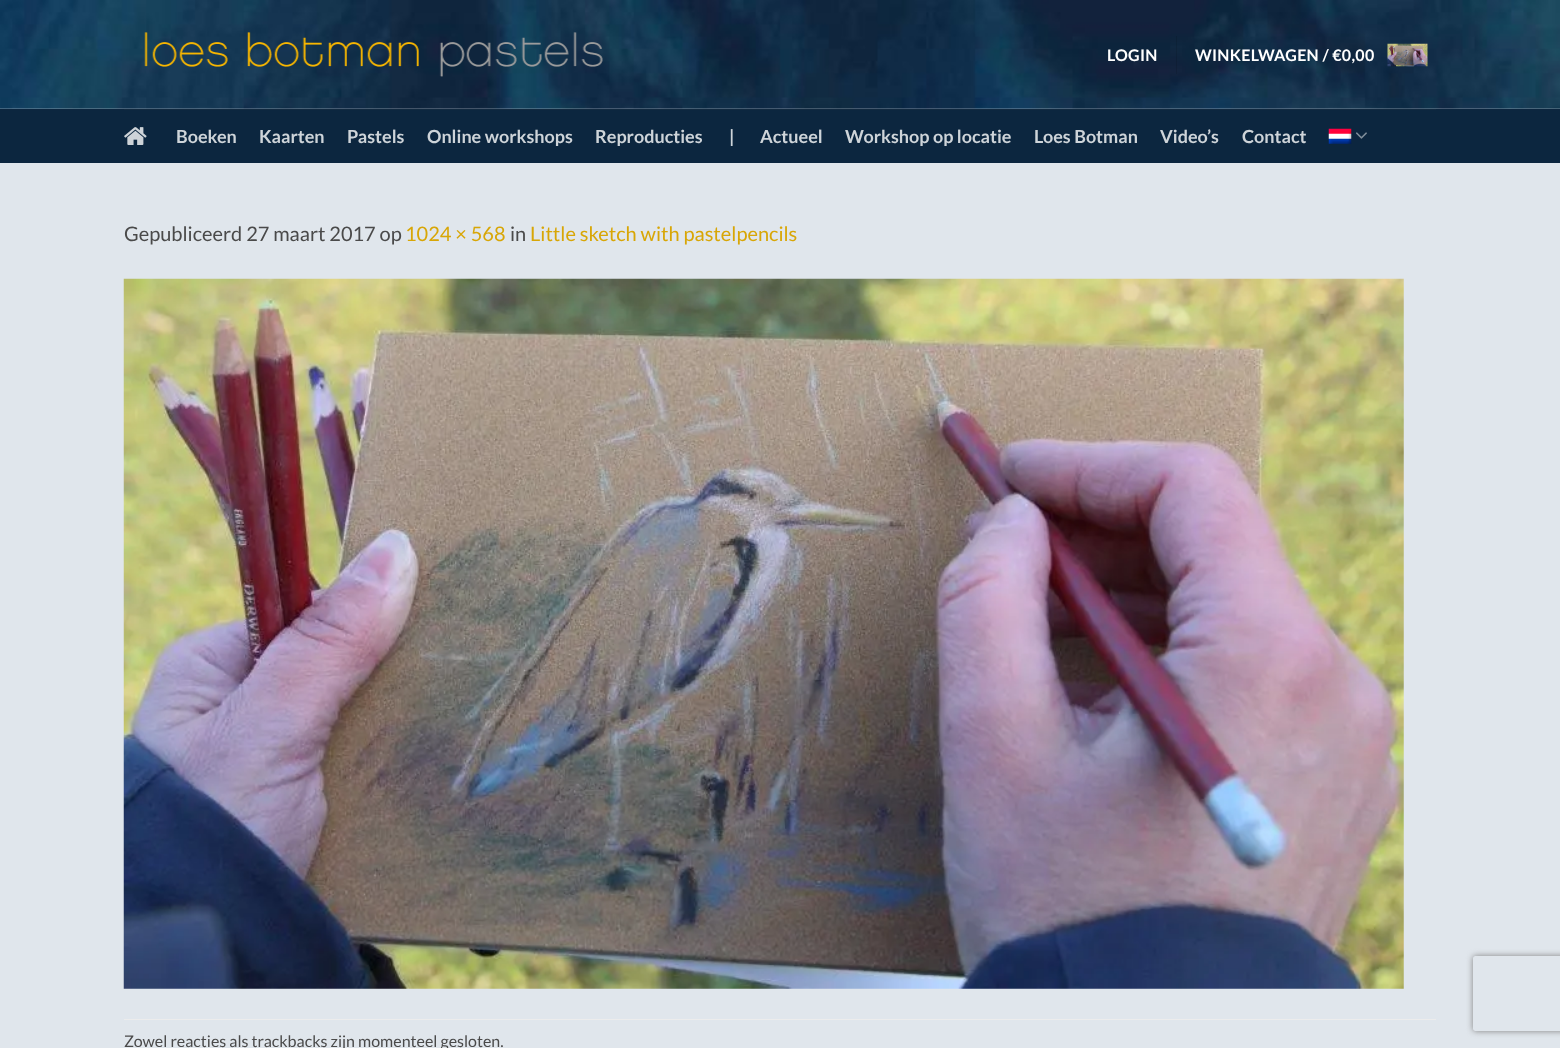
<svg xmlns="http://www.w3.org/2000/svg" width="1560" height="1048">
	<defs>
		<clipPath id="clip1"><path d="M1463 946H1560V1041H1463ZM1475.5 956H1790.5C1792 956 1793 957 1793 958.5V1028.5C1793 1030 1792 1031 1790.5 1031H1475.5C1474 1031 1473 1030 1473 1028.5V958.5C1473 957 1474 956 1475.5 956Z" clip-rule="evenodd" /></clipPath>
	</defs>
	<rect width="100%" height="100%" fill="#E0E6EC" />
	<image x="0" y="0" width="1560" height="109" href="assets/img1.png" />
	<image x="144" y="32" width="459" height="45" href="assets/img2.png" />
	<text x="1107" y="61" font-family="Lato" font-size="16" font-weight="700" letter-spacing="0.3" fill="#FFFFFF">LOGIN</text>
	<rect x="1176" y="36" width="1" height="38" fill="#000000" fill-opacity="0.1" />
	<text x="1195" y="61" font-family="Lato" font-size="16" font-weight="700" letter-spacing="0.3" fill="#FFFFFF">WINKELWAGEN / €0,00</text>
	<image x="1387" y="43" width="41" height="24" href="assets/img3.png" />
	<rect x="0" y="109" width="1560" height="54" fill="#0C263F" />
	<rect x="124" y="109" width="1312" height="1" fill="#122A40" />
	<image x="124" y="127" width="23" height="18" href="assets/img4.png" />
	<g font-family="Lato" font-size="18" font-weight="700" fill="#CED4D9">
		<text x="176" y="143">Boeken</text>
		<text x="259" y="143">Kaarten</text>
		<text x="347" y="143">Pastels</text>
		<text x="427" y="143">Online workshops</text>
		<text x="595" y="143">Reproducties</text>
		<text x="729" y="143">|</text>
		<text x="760" y="143">Actueel</text>
		<text x="845" y="143">Workshop op locatie</text>
		<text x="1034" y="143">Loes Botman</text>
		<text x="1160" y="143">Video’s</text>
		<text x="1242" y="143">Contact</text>
	</g>
	<image x="1328" y="128" width="24" height="16" href="assets/img5.png" />
	<image x="1356" y="132" width="11" height="7" href="assets/img6.png" />
	<text x="124" y="241" font-family="Lato" font-size="20" fill="#4A4A4A">Gepubliceerd 27 maart 2017 op</text>
	<text x="405" y="241" font-family="Lato" font-size="20" fill="#D8A606">1024 × 568</text>
	<text x="510" y="241" font-family="Lato" font-size="20" fill="#4A4A4A">in</text>
	<text x="530" y="241" font-family="Lato" font-size="20" fill="#D8A606">Little sketch with pastelpencils</text>
	<image x="123" y="278" width="1281" height="711" href="assets/img7.png" />
	<rect x="124" y="1019" width="1312" height="1" fill="#ECECEC" />
	<text x="124" y="1047" font-family="Lato" font-size="16" fill="#4A4A4A">Zowel reacties als trackbacks zijn momenteel gesloten.</text>
	<g clip-path="url(#clip1)">
		<rect x="1473" y="956" width="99" height="75" rx="2.5" fill="#808080" filter="blur(3px)" />
	</g>
</svg>
